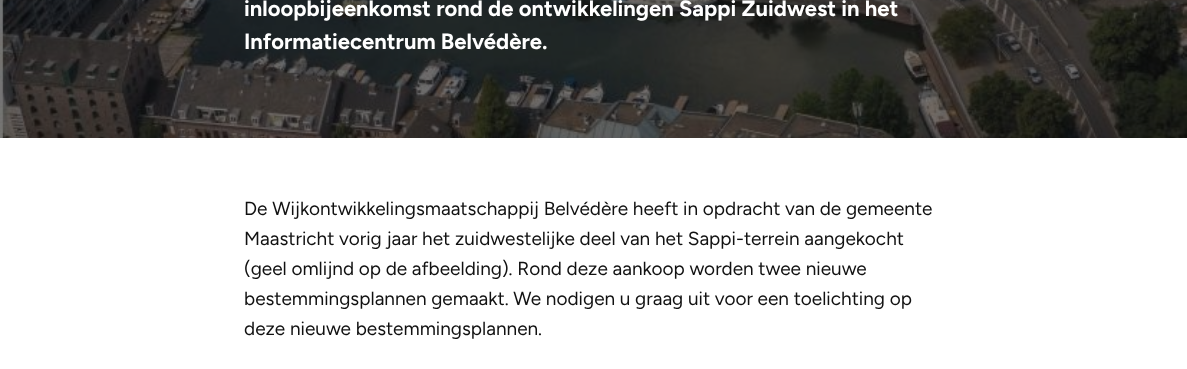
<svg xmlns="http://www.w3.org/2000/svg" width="1187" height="369">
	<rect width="100%" height="100%" fill="#FFFFFF" />
	<image x="0" y="0" width="1187" height="138" href="assets/img1.png" />
	<g font-family="Figtree" font-size="22" font-weight="700" fill="#FFFFFF">
		<text x="244" y="16">inloopbijeenkomst rond de ontwikkelingen Sappi Zuidwest in het</text>
		<text x="244" y="49">Informatiecentrum Belvédère.</text>
	</g>
	<g font-family="Figtree" font-size="19" fill="#111111">
		<text x="244" y="215">De Wijkontwikkelingsmaatschappij Belvédère heeft in opdracht van de gemeente</text>
		<text x="244" y="245">Maastricht vorig jaar het zuidwestelijke deel van het Sappi-terrein aangekocht</text>
		<text x="244" y="275">(geel omlijnd op de afbeelding). Rond deze aankoop worden twee nieuwe</text>
		<text x="244" y="305">bestemmingsplannen gemaakt. We nodigen u graag uit voor een toelichting op</text>
		<text x="244" y="335">deze nieuwe bestemmingsplannen.</text>
	</g>
</svg>
